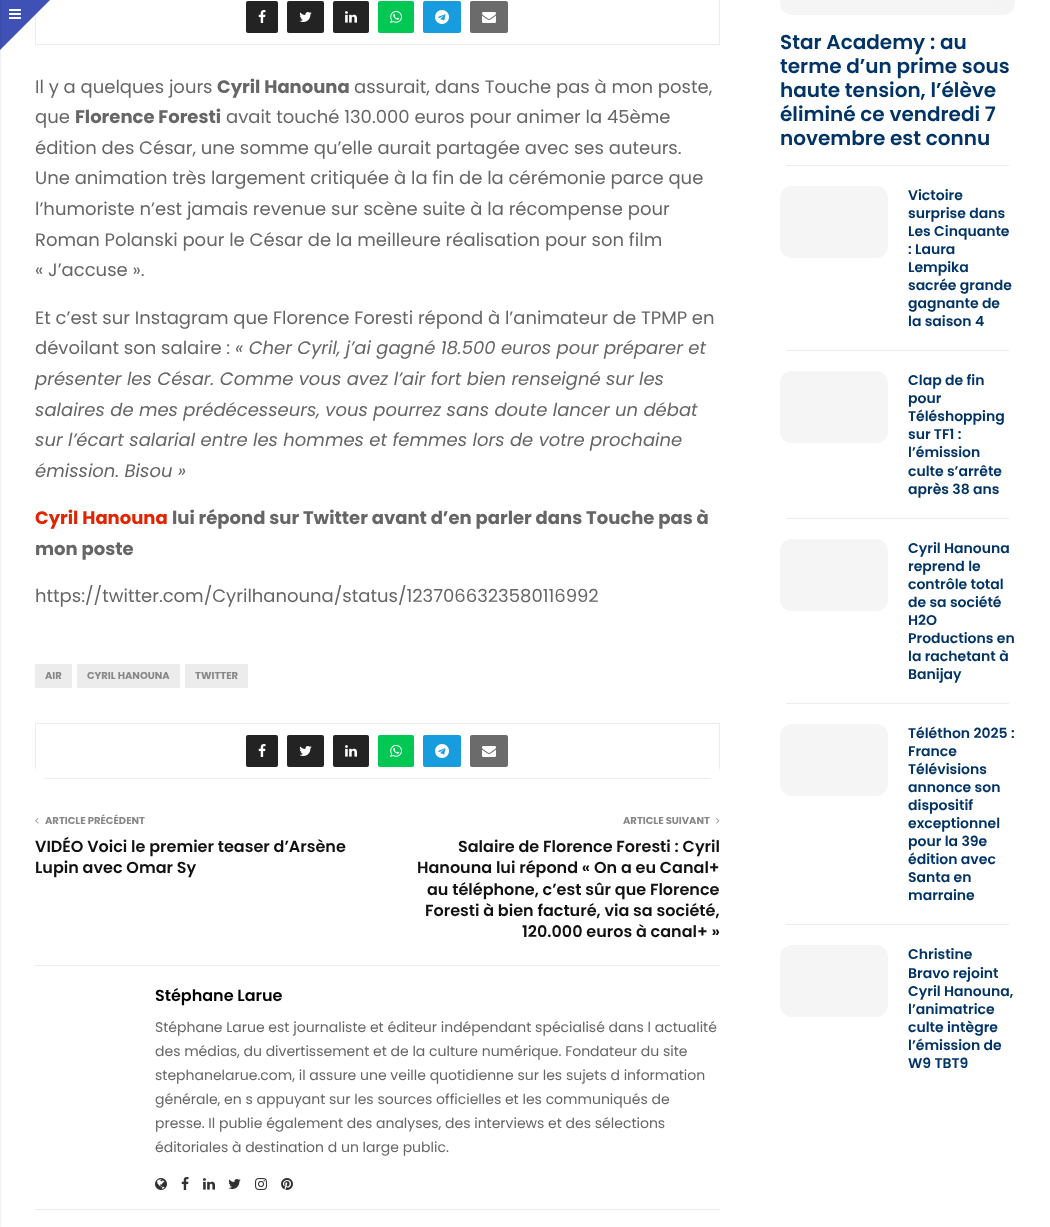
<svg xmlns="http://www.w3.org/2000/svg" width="1050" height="1227">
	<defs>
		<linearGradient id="g1" gradientUnits="userSpaceOnUse" x1="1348" y1="-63" x2="447" y2="-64"><stop offset="0" stop-color="#F5F5F5" /><stop offset="0.15" stop-color="#EFEFEF" /><stop offset="0.4" stop-color="#F5F5F5" /><stop offset="1" stop-color="#F5F5F5" /></linearGradient>
		<linearGradient id="g2" gradientUnits="userSpaceOnUse" x1="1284" y1="222" x2="384" y2="222"><stop offset="0" stop-color="#F5F5F5" /><stop offset="0.15" stop-color="#EFEFEF" /><stop offset="0.4" stop-color="#F5F5F5" /><stop offset="1" stop-color="#F5F5F5" /></linearGradient>
		<linearGradient id="g3" gradientUnits="userSpaceOnUse" x1="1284" y1="407" x2="384" y2="407"><stop offset="0" stop-color="#F5F5F5" /><stop offset="0.15" stop-color="#EFEFEF" /><stop offset="0.4" stop-color="#F5F5F5" /><stop offset="1" stop-color="#F5F5F5" /></linearGradient>
		<linearGradient id="g4" gradientUnits="userSpaceOnUse" x1="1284" y1="575" x2="384" y2="575"><stop offset="0" stop-color="#F5F5F5" /><stop offset="0.15" stop-color="#EFEFEF" /><stop offset="0.4" stop-color="#F5F5F5" /><stop offset="1" stop-color="#F5F5F5" /></linearGradient>
		<linearGradient id="g5" gradientUnits="userSpaceOnUse" x1="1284" y1="760" x2="384" y2="760"><stop offset="0" stop-color="#F5F5F5" /><stop offset="0.15" stop-color="#EFEFEF" /><stop offset="0.4" stop-color="#F5F5F5" /><stop offset="1" stop-color="#F5F5F5" /></linearGradient>
		<linearGradient id="g6" gradientUnits="userSpaceOnUse" x1="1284" y1="981" x2="384" y2="981"><stop offset="0" stop-color="#F5F5F5" /><stop offset="0.15" stop-color="#EFEFEF" /><stop offset="0.4" stop-color="#F5F5F5" /><stop offset="1" stop-color="#F5F5F5" /></linearGradient>
	</defs>
	<rect width="100%" height="100%" fill="#FFFFFF" />
	<rect x="35.5" y="-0.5" width="684" height="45" fill="none" stroke="#ECECEC" />
	<path d="M0 0H50L0 50Z" fill="#3F51B5" />
	<image x="9" y="9" width="12" height="10" href="assets/img1.png" />
	<rect x="-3" y="0" width="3" height="1227" fill="#000000" fill-opacity="0.15" filter="blur(1px)" />
	<rect x="246" y="1" width="32" height="32" rx="2" fill="#232323" />
	<image x="258" y="10" width="8" height="13" href="assets/img2.png" />
	<rect x="287" y="1" width="37" height="32" rx="2" fill="#232323" />
	<image x="299" y="12" width="13" height="10" href="assets/img3.png" />
	<rect x="333" y="1" width="36" height="32" rx="2" fill="#232323" />
	<image x="345" y="11" width="12" height="12" href="assets/img4.png" />
	<rect x="378" y="1" width="36" height="32" rx="2" fill="#00C853" />
	<image x="390" y="11" width="12" height="12" href="assets/img5.png" />
	<rect x="423" y="1" width="38" height="32" rx="2" fill="#179CDE" />
	<image x="435" y="10" width="14" height="14" href="assets/img6.png" />
	<rect x="470" y="1" width="38" height="32" rx="2" fill="#6B6B6B" />
	<image x="482" y="12" width="14" height="11" href="assets/img7.png" />
	<text x="35" y="93" font-family="Poppins" font-size="18" fill="#666666">Il y a quelques jours</text>
	<text x="217" y="93" font-family="Poppins" font-size="18" font-weight="700" fill="#666666">Cyril Hanouna</text>
	<g font-family="Poppins" font-size="18" fill="#666666">
		<text x="354" y="93">assurait, dans Touche pas à mon poste,</text>
		<text x="35" y="123">que</text>
	</g>
	<text x="75" y="123" font-family="Poppins" font-size="18" font-weight="700" fill="#666666">Florence Foresti</text>
	<g font-family="Poppins" font-size="18" fill="#666666">
		<text x="226" y="123">avait touché 130.000 euros pour animer la 45ème</text>
		<text x="35" y="154">édition des César, une somme qu’elle aurait partagée avec ses auteurs.</text>
		<text x="35" y="184">Une animation très largement critiquée à la fin de la cérémonie parce que</text>
		<text x="35" y="215">l’humoriste n’est jamais revenue sur scène suite à la récompense pour</text>
		<text x="35" y="246">Roman Polanski pour le César de la meilleure réalisation pour son film</text>
		<text x="35" y="276">« J’accuse ».</text>
		<text x="35" y="324">Et c’est sur Instagram que Florence Foresti répond à l’animateur de TPMP en</text>
		<text x="35" y="354">dévoilant son salaire :</text>
	</g>
	<g font-family="Poppins" font-size="18" font-style="italic" fill="#666666">
		<text x="235" y="354">« Cher Cyril, j’ai gagné 18.500 euros pour préparer et</text>
		<text x="35" y="385">présenter les César. Comme vous avez l’air fort bien renseigné sur les</text>
		<text x="35" y="416">salaires de mes prédécesseurs, vous pourrez sans doute lancer un débat</text>
		<text x="35" y="446">sur l’écart salarial entre les hommes et femmes lors de votre prochaine</text>
		<text x="35" y="477">émission. Bisou »</text>
	</g>
	<text x="35" y="524" font-family="Poppins" font-size="18" font-weight="700" fill="#E22300">Cyril Hanouna</text>
	<g font-family="Poppins" font-size="18" font-weight="700" fill="#666666">
		<text x="172" y="524">lui répond sur Twitter avant d’en parler dans Touche pas à</text>
		<text x="35" y="555">mon poste</text>
	</g>
	<text x="35" y="602" font-family="Poppins" font-size="18" fill="#666666">https://twitter.com/Cyrilhanouna/status/1237066323580116992</text>
	<rect x="35" y="664" width="37" height="24" fill="#ECECEC" />
	<text x="45" y="679" font-family="Poppins" font-size="10" font-weight="700" fill="#888888">AIR</text>
	<rect x="77" y="664" width="103" height="24" fill="#ECECEC" />
	<text x="87" y="679" font-family="Poppins" font-size="10" font-weight="700" fill="#888888">CYRIL HANOUNA</text>
	<rect x="185" y="664" width="63" height="24" fill="#ECECEC" />
	<text x="195" y="679" font-family="Poppins" font-size="10" font-weight="700" fill="#888888">TWITTER</text>
	<path d="M36 724H719V772L720 767V723H35V767L36 772ZM708 779L713 778H42L47 779Z" fill="#ECECEC" fill-rule="evenodd" />
	<rect x="246" y="735" width="32" height="32" rx="2" fill="#232323" />
	<image x="258" y="744" width="8" height="13" href="assets/img2.png" />
	<rect x="287" y="735" width="37" height="32" rx="2" fill="#232323" />
	<image x="299" y="746" width="13" height="10" href="assets/img3.png" />
	<rect x="333" y="735" width="36" height="32" rx="2" fill="#232323" />
	<image x="345" y="745" width="12" height="12" href="assets/img4.png" />
	<rect x="378" y="735" width="36" height="32" rx="2" fill="#00C853" />
	<image x="390" y="745" width="12" height="12" href="assets/img5.png" />
	<rect x="423" y="735" width="38" height="32" rx="2" fill="#179CDE" />
	<image x="435" y="744" width="14" height="14" href="assets/img6.png" />
	<rect x="470" y="735" width="38" height="32" rx="2" fill="#6B6B6B" />
	<image x="482" y="746" width="14" height="11" href="assets/img7.png" />
	<rect x="35" y="965" width="685" height="1" fill="#ECECEC" />
	<image x="35" y="818" width="4" height="6" href="assets/img8.png" />
	<text x="45" y="824" font-family="Poppins" font-size="10" font-weight="700" fill="#888888">ARTICLE PRÉCÉDENT</text>
	<g font-family="Poppins" font-size="16" font-weight="600" fill="#111111">
		<text x="35" y="852">VIDÉO Voici le premier teaser d’Arsène</text>
		<text x="35" y="873">Lupin avec Omar Sy</text>
	</g>
	<text x="623" y="824" font-family="Poppins" font-size="10" font-weight="700" fill="#888888">ARTICLE SUIVANT</text>
	<image x="716" y="818" width="4" height="6" href="assets/img9.png" />
	<g font-family="Poppins" font-size="16" font-weight="600" fill="#111111">
		<text x="458" y="852">Salaire de Florence Foresti : Cyril</text>
		<text x="417" y="873">Hanouna lui répond « On a eu Canal+</text>
		<text x="427" y="895">au téléphone, c’est sûr que Florence</text>
		<text x="425" y="916">Foresti à bien facturé, via sa société,</text>
		<text x="522" y="937">120.000 euros à canal+ »</text>
	</g>
	<rect x="35" y="1209" width="685" height="1" fill="#ECECEC" />
	<text x="155" y="1001" font-family="Poppins" font-size="16" font-weight="600" fill="#000000">Stéphane Larue</text>
	<g font-family="Poppins" font-size="14" fill="#666666">
		<text x="155" y="1032">Stéphane Larue est journaliste et éditeur indépendant spécialisé dans l actualité</text>
		<text x="155" y="1056">des médias, du divertissement et de la culture numérique. Fondateur du site</text>
		<text x="155" y="1080">stephanelarue.com, il assure une veille quotidienne sur les sujets d information</text>
		<text x="155" y="1104">générale, en s appuyant sur les sources officielles et les communiqués de</text>
		<text x="155" y="1128">presse. Il publie également des analyses, des interviews et des sélections</text>
		<text x="155" y="1152">éditoriales à destination d un large public.</text>
	</g>
	<image x="155" y="1178" width="12" height="12" href="assets/img10.png" />
	<image x="181" y="1177" width="8" height="13" href="assets/img11.png" />
	<image x="203" y="1178" width="12" height="12" href="assets/img12.png" />
	<image x="228" y="1179" width="13" height="10" href="assets/img13.png" />
	<image x="255" y="1178" width="12" height="12" href="assets/img14.png" />
	<image x="281" y="1178" width="12" height="12" href="assets/img15.png" />
	<rect x="786" y="165" width="223" height="1" fill="#ECECEC" />
	<rect x="780" y="-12" width="235" height="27" rx="12" fill="url(#g1)" />
	<g font-family="Poppins" font-size="20" font-weight="600" fill="#003366">
		<text x="780" y="49">Star Academy : au</text>
		<text x="780" y="73">terme d’un prime sous</text>
		<text x="780" y="97">haute tension, l’élève</text>
		<text x="780" y="121">éliminé ce vendredi 7</text>
		<text x="780" y="145">novembre est connu</text>
	</g>
	<rect x="786" y="350" width="223" height="1" fill="#ECECEC" />
	<rect x="780" y="186" width="108" height="72" rx="12" fill="url(#g2)" />
	<g font-family="Poppins" font-size="14" font-weight="600" fill="#003366">
		<text x="908" y="200">Victoire</text>
		<text x="908" y="218">surprise dans</text>
		<text x="908" y="236">Les Cinquante</text>
		<text x="908" y="254">: Laura</text>
		<text x="908" y="272">Lempika</text>
		<text x="908" y="290">sacrée grande</text>
		<text x="908" y="308">gagnante de</text>
		<text x="908" y="326">la saison 4</text>
	</g>
	<rect x="786" y="518" width="223" height="1" fill="#ECECEC" />
	<rect x="780" y="371" width="108" height="72" rx="12" fill="url(#g3)" />
	<g font-family="Poppins" font-size="14" font-weight="600" fill="#003366">
		<text x="908" y="385">Clap de fin</text>
		<text x="908" y="403">pour</text>
		<text x="908" y="421">Téléshopping</text>
		<text x="908" y="439">sur TF1 :</text>
		<text x="908" y="457">l’émission</text>
		<text x="908" y="476">culte s’arrête</text>
		<text x="908" y="494">après 38 ans</text>
	</g>
	<rect x="786" y="703" width="223" height="1" fill="#ECECEC" />
	<rect x="780" y="539" width="108" height="72" rx="12" fill="url(#g4)" />
	<g font-family="Poppins" font-size="14" font-weight="600" fill="#003366">
		<text x="908" y="553">Cyril Hanouna</text>
		<text x="908" y="571">reprend le</text>
		<text x="908" y="589">contrôle total</text>
		<text x="908" y="607">de sa société</text>
		<text x="908" y="625">H2O</text>
		<text x="908" y="643">Productions en</text>
		<text x="908" y="661">la rachetant à</text>
		<text x="908" y="679">Banijay</text>
	</g>
	<rect x="786" y="924" width="223" height="1" fill="#ECECEC" />
	<rect x="780" y="724" width="108" height="72" rx="12" fill="url(#g5)" />
	<g font-family="Poppins" font-size="14" font-weight="600" fill="#003366">
		<text x="908" y="738">Téléthon 2025 :</text>
		<text x="908" y="756">France</text>
		<text x="908" y="774">Télévisions</text>
		<text x="908" y="792">annonce son</text>
		<text x="908" y="810">dispositif</text>
		<text x="908" y="828">exceptionnel</text>
		<text x="908" y="846">pour la 39e</text>
		<text x="908" y="864">édition avec</text>
		<text x="908" y="882">Santa en</text>
		<text x="908" y="900">marraine</text>
	</g>
	<rect x="780" y="945" width="108" height="72" rx="12" fill="url(#g6)" />
	<g font-family="Poppins" font-size="14" font-weight="600" fill="#003366">
		<text x="908" y="959">Christine</text>
		<text x="908" y="978">Bravo rejoint</text>
		<text x="908" y="996">Cyril Hanouna,</text>
		<text x="908" y="1014">l’animatrice</text>
		<text x="908" y="1032">culte intègre</text>
		<text x="908" y="1050">l’émission de</text>
		<text x="908" y="1068">W9 TBT9</text>
	</g>
</svg>
